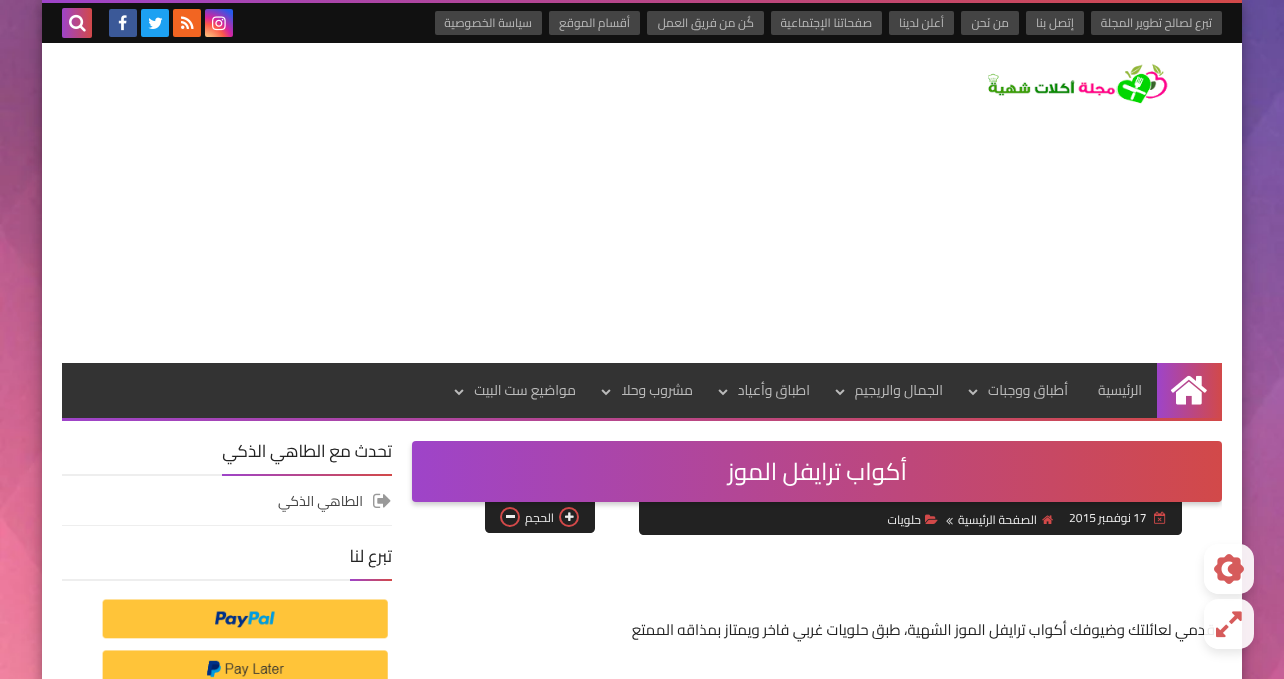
<svg xmlns="http://www.w3.org/2000/svg" width="1284" height="679">
	<defs>
		<clipPath id="clip1"><path d="M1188 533H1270V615H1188ZM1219 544H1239C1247.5 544 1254 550.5 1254 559V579C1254 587.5 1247.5 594 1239 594H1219C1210.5 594 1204 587.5 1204 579V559C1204 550.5 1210.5 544 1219 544Z" clip-rule="evenodd" /></clipPath>
		<clipPath id="clip2"><path d="M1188 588H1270V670H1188ZM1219 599H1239C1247.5 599 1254 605.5 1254 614V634C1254 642.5 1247.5 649 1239 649H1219C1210.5 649 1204 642.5 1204 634V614C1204 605.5 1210.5 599 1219 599Z" clip-rule="evenodd" /></clipPath>
		<linearGradient id="g1" gradientUnits="userSpaceOnUse" x1="1242" y1="1.5" x2="42" y2="1.5"><stop offset="0" stop-color="#D24949" /><stop offset="1" stop-color="#9E44C9" /></linearGradient>
		<radialGradient id="g2" gradientUnits="userSpaceOnUse" cx="205" cy="45" r="46"><stop offset="0" stop-color="#FDF497" /><stop offset="0.05" stop-color="#FDF497" /><stop offset="0.45" stop-color="#FD5949" /><stop offset="0.6" stop-color="#D6249F" /><stop offset="0.9" stop-color="#285AEB" /></radialGradient>
		<linearGradient id="g3" gradientUnits="userSpaceOnUse" x1="92" y1="23" x2="62" y2="23"><stop offset="0" stop-color="#D24949" /><stop offset="1" stop-color="#9E44C9" /></linearGradient>
		<linearGradient id="g4" gradientUnits="userSpaceOnUse" x1="1222" y1="391" x2="1157" y2="391"><stop offset="0" stop-color="#D24949" /><stop offset="1" stop-color="#9E44C9" /></linearGradient>
		<linearGradient id="g5" gradientUnits="userSpaceOnUse" x1="1222" y1="420" x2="62" y2="419"><stop offset="0" stop-color="#D24949" /><stop offset="1" stop-color="#9E44C9" /></linearGradient>
		<clipPath id="clip3"><rect x="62" y="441" width="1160" height="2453" /></clipPath>
		<linearGradient id="g6" gradientUnits="userSpaceOnUse" x1="1222" y1="472" x2="412" y2="472"><stop offset="0" stop-color="#D24949" /><stop offset="1" stop-color="#9E44C9" /></linearGradient>
		<linearGradient id="g7" gradientUnits="userSpaceOnUse" x1="392" y1="475" x2="222" y2="475"><stop offset="0" stop-color="#D24949" /><stop offset="1" stop-color="#9E44C9" /></linearGradient>
		<linearGradient id="g8" gradientUnits="userSpaceOnUse" x1="392" y1="580" x2="350" y2="580"><stop offset="0" stop-color="#D24949" /><stop offset="1" stop-color="#9E44C9" /></linearGradient>
	</defs>
	<rect width="100%" height="100%" fill="#FFFFFF" />
	<image x="0" y="0" width="1284" height="679" href="assets/img1.png" />
	<rect x="42" y="6" width="1200" height="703" fill="#000000" fill-opacity="0.19" filter="blur(10px)" />
	<rect x="42" y="4" width="1200" height="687" fill="#000000" fill-opacity="0.2" filter="blur(4px)" />
	<rect x="42" y="43" width="1200" height="636" fill="#FFFFFF" />
	<g clip-path="url(#clip1)">
		<rect x="1204" y="549" width="50" height="50" rx="15" fill="#000000" fill-opacity="0.09" filter="blur(5px)" />
	</g>
	<rect x="1204" y="544" width="50" height="50" rx="15" fill="#FFFFFF" fill-opacity="0.9" />
	<image x="1214" y="554" width="30" height="30" href="assets/img2.png" />
	<g clip-path="url(#clip2)">
		<rect x="1204" y="604" width="50" height="50" rx="15" fill="#000000" fill-opacity="0.09" filter="blur(5px)" />
	</g>
	<text x="1215" y="635" font-family="Cairo" font-size="15" direction="rtl" fill="#222222">قدمي لعائلتك وضيوفك أكواب ترايفل الموز الشهية، طبق حلويات غربي فاخر ويمتاز بمذاقه الممتع</text>
	<rect x="1204" y="599" width="50" height="50" rx="15" fill="#FFFFFF" fill-opacity="0.9" />
	<image x="1216" y="611" width="26" height="27" href="assets/img3.png" />
	<rect x="42" y="0" width="1200" height="3" fill="url(#g1)" />
	<rect x="42" y="3" width="1200" height="40" fill="#111111" />
	<rect x="1091" y="11" width="131" height="24" rx="2" fill="#444444" />
	<text x="1212" y="27" font-family="Cairo" font-size="12" direction="rtl" fill="#BBBBBB">تبرع لصالح تطوير المجلة</text>
	<rect x="1026" y="11" width="58" height="24" rx="2" fill="#444444" />
	<text x="1074" y="27" font-family="Cairo" font-size="12" direction="rtl" fill="#BBBBBB">إتصل بنا</text>
	<rect x="961" y="11" width="58" height="24" rx="2" fill="#444444" />
	<text x="1009" y="27" font-family="Cairo" font-size="12" direction="rtl" fill="#BBBBBB">من نَحن</text>
	<rect x="889" y="11" width="65" height="24" rx="2" fill="#444444" />
	<text x="944" y="27" font-family="Cairo" font-size="12" direction="rtl" fill="#BBBBBB">أعلن لدينا</text>
	<rect x="771" y="11" width="111" height="24" rx="2" fill="#444444" />
	<text x="872" y="27" font-family="Cairo" font-size="12" direction="rtl" fill="#BBBBBB">صفحاتنا الإجتماعية</text>
	<rect x="647" y="11" width="117" height="24" rx="2" fill="#444444" />
	<text x="754" y="27" font-family="Cairo" font-size="12" direction="rtl" fill="#BBBBBB">كُن من فريق العمل</text>
	<rect x="549" y="11" width="91" height="24" rx="2" fill="#444444" />
	<text x="630" y="27" font-family="Cairo" font-size="12" direction="rtl" fill="#BBBBBB">أقسام الموقع</text>
	<rect x="435" y="11" width="107" height="24" rx="2" fill="#444444" />
	<text x="532" y="27" font-family="Cairo" font-size="12" direction="rtl" fill="#BBBBBB">سياسة الخصوصية</text>
	<rect x="205" y="9" width="28" height="28" rx="2" fill="url(#g2)" />
	<image x="212" y="16" width="14" height="15" href="assets/img4.png" />
	<rect x="173" y="9" width="28" height="28" rx="2" fill="#F26522" />
	<image x="181" y="16" width="13" height="13" href="assets/img5.png" />
	<rect x="141" y="9" width="28" height="28" rx="2" fill="#1DA1F2" />
	<image x="148" y="17" width="15" height="12" href="assets/img6.png" />
	<rect x="109" y="9" width="28" height="28" rx="2" fill="#3B5998" />
	<image x="118" y="15" width="9" height="16" href="assets/img7.png" />
	<rect x="62" y="8" width="30" height="30" rx="2" fill="url(#g3)" />
	<image x="69" y="14" width="17" height="18" href="assets/img8.png" />
	<image x="988" y="63" width="180" height="41" href="assets/img9.png" />
	<rect x="62" y="363" width="1095" height="55" fill="#333333" />
	<rect x="1157" y="363" width="65" height="55" fill="url(#g4)" />
	<image x="1170" y="375" width="37" height="30" href="assets/img10.png" />
	<g font-family="Cairo" font-size="14" direction="rtl" fill="#BBBBBB">
		<text x="1142" y="395">الرئيسية</text>
		<text x="1068" y="395">أطباق ووجبات</text>
	</g>
	<image x="968" y="389" width="10" height="7" href="assets/img11.png" />
	<text x="943" y="395" font-family="Cairo" font-size="14" direction="rtl" fill="#BBBBBB">الجمال والريجيم</text>
	<image x="835" y="389" width="10" height="7" href="assets/img11.png" />
	<text x="810" y="395" font-family="Cairo" font-size="14" direction="rtl" fill="#BBBBBB">اطباق وأعياد</text>
	<image x="718" y="389" width="10" height="7" href="assets/img11.png" />
	<text x="693" y="395" font-family="Cairo" font-size="14" direction="rtl" fill="#BBBBBB">مشروب وحلا</text>
	<image x="601" y="389" width="10" height="7" href="assets/img11.png" />
	<text x="576" y="395" font-family="Cairo" font-size="14" direction="rtl" fill="#BBBBBB">مواضيع ست البيت</text>
	<image x="454" y="389" width="10" height="7" href="assets/img11.png" />
	<rect x="62" y="418" width="1160" height="3" fill="url(#g5)" />
	<path d="M639 502H1182V530C1182 533 1180 535 1177 535H644C641 535 639 533 639 530Z" fill="#222222" />
	<image x="1154" y="511" width="12" height="13" href="assets/img12.png" />
	<path d="M485 502H595V528C595 531 593 533 590 533H490C487 533 485 531 485 528Z" fill="#222222" />
	<circle cx="569" cy="517" r="9" fill="none" stroke="#D24949" stroke-width="2" />
	<image x="565" y="512" width="9" height="9" href="assets/img16.png" />
	<circle cx="510" cy="517" r="9" fill="none" stroke="#D24949" stroke-width="2" />
	<g clip-path="url(#clip3)">
		<rect x="412" y="444" width="810" height="61" rx="4" fill="#000000" fill-opacity="0.2" filter="blur(2.5px)" />
	</g>
	<rect x="412" y="441" width="810" height="61" rx="4" fill="url(#g6)" />
	<text x="907" y="480" font-family="Cairo" font-size="24" direction="rtl" fill="#FFFFFF">أكواب ترايفل الموز</text>
	<text x="1133" y="522" font-family="Cairo" font-size="12" fill="#EEEEEE">17</text>
	<text x="1131" y="522" font-family="Cairo" font-size="12" direction="rtl" fill="#EEEEEE">نوفمبر</text>
	<text x="1069" y="522" font-family="Cairo" font-size="12" fill="#EEEEEE">2015</text>
	<image x="1042" y="515" width="11" height="9" href="assets/img13.png" />
	<text x="1037" y="524" font-family="Cairo" font-size="12" direction="rtl" fill="#EEEEEE">الصفحة الرئيسية</text>
	<image x="946" y="517" width="7" height="8" href="assets/img14.png" />
	<image x="925" y="514" width="13" height="10" href="assets/img15.png" />
	<g font-family="Cairo" font-size="12" direction="rtl" fill="#EEEEEE">
		<text x="921" y="524">حلويات</text>
		<text x="554" y="522">الحجم</text>
	</g>
	<rect x="506" y="515" width="9" height="3" fill="#EEEEEE" />
	<rect x="62" y="474" width="160" height="2" fill="#EEEEEE" />
	<text x="392" y="457" font-family="Cairo" font-size="17" direction="rtl" fill="#222222">تحدث مع الطاهي الذكي</text>
	<rect x="222" y="474" width="170" height="2" fill="url(#g7)" />
	<rect x="62" y="525" width="330" height="1" fill="#EEEEEE" />
	<image x="373" y="493" width="18" height="15" href="assets/img17.png" />
	<text x="363" y="506" font-family="Cairo" font-size="14" direction="rtl" fill="#444444">الطاهي الذكي</text>
	<rect x="62" y="579" width="288" height="2" fill="#EEEEEE" />
	<text x="392" y="562" font-family="Cairo" font-size="17" direction="rtl" fill="#222222">تبرع لنا</text>
	<rect x="350" y="579" width="42" height="2" fill="url(#g8)" />
	<image x="102" y="599" width="286" height="80" href="assets/img18.png" />
</svg>
